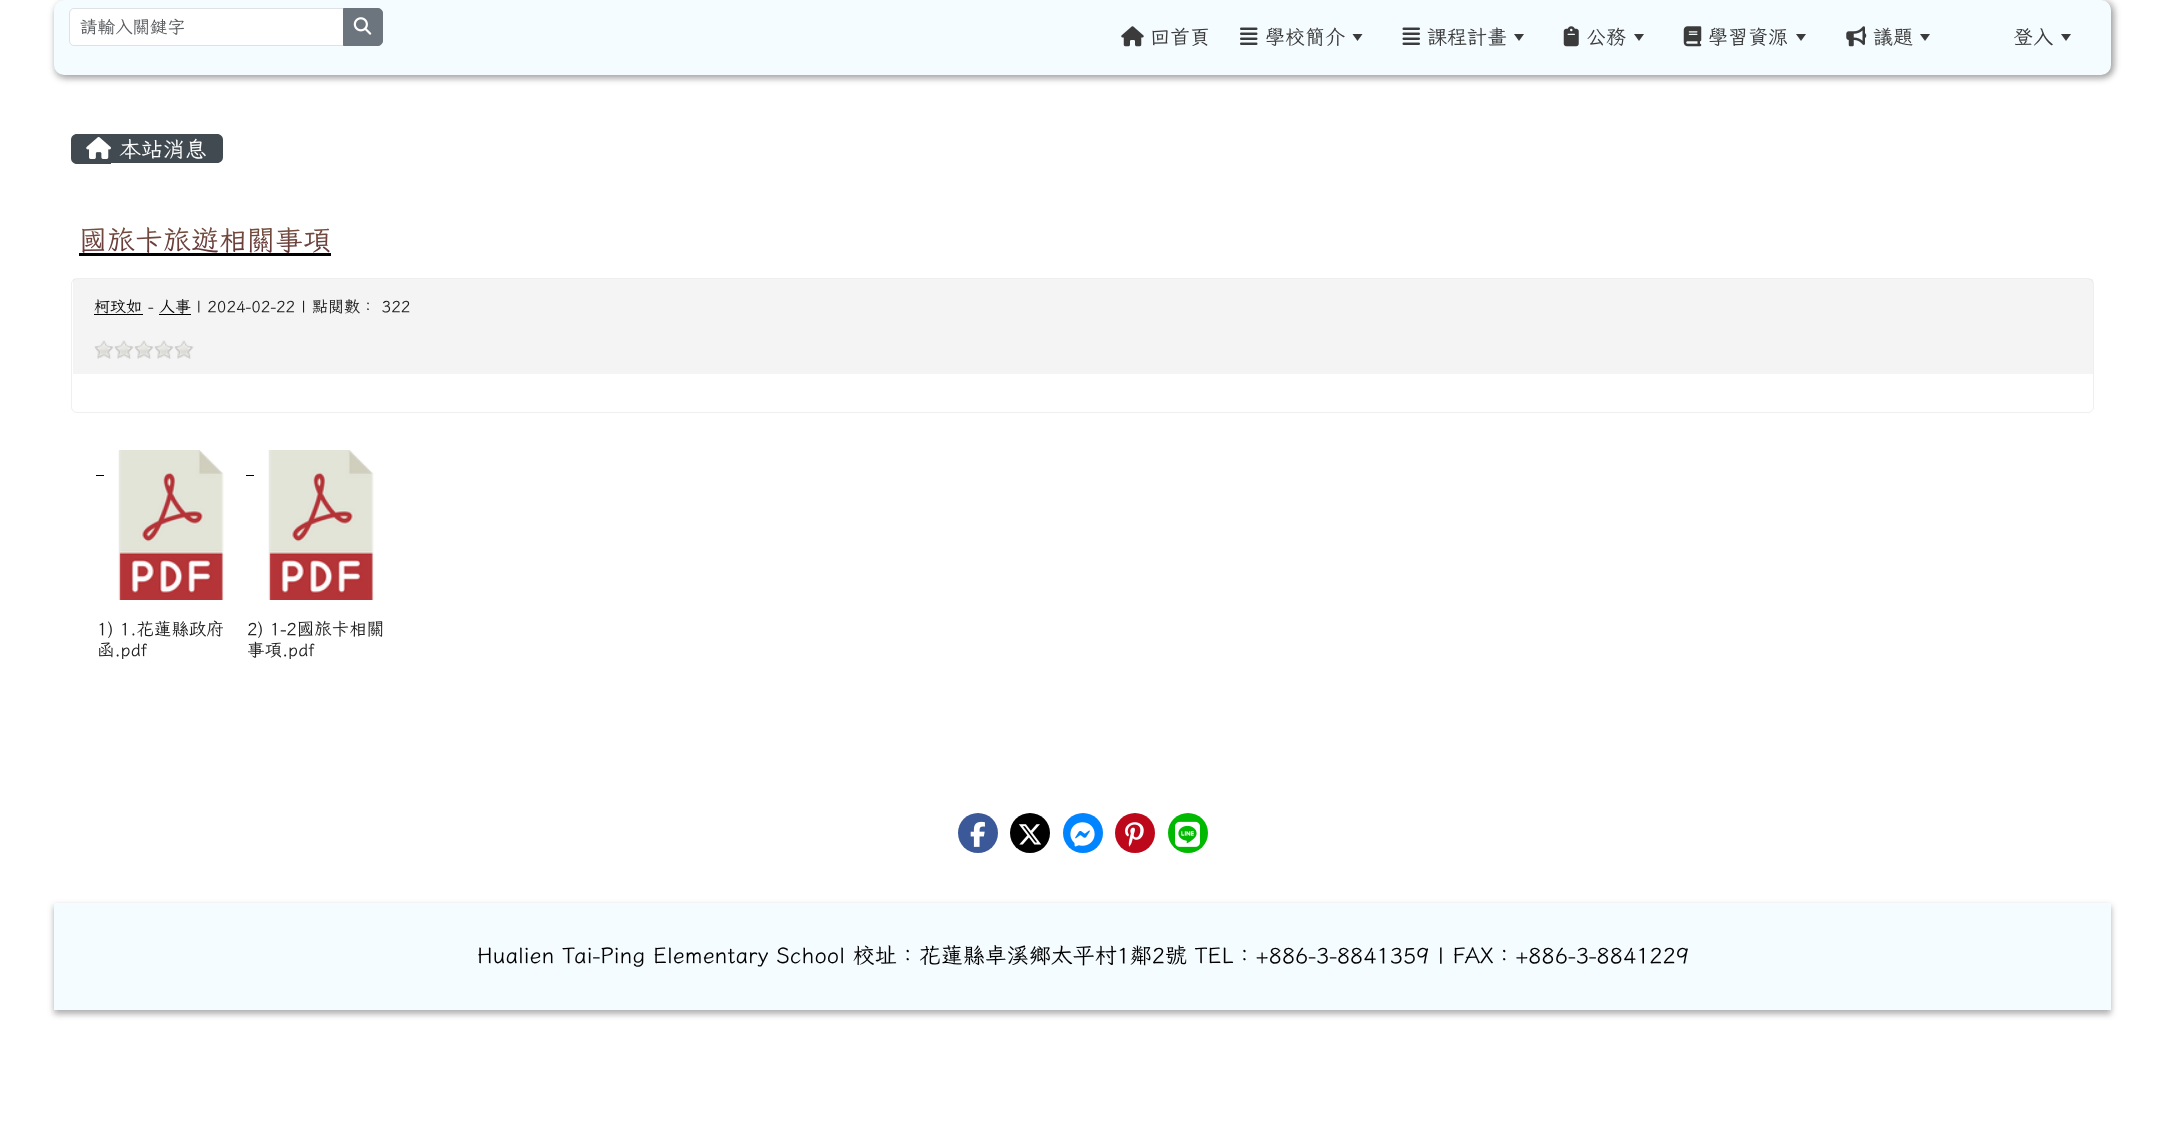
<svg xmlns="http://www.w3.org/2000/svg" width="2164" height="1127">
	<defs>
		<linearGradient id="g1" gradientUnits="userSpaceOnUse" x1="1082" y1="216" x2="1082" y2="265"><stop offset="0" stop-color="#7E5C40" /><stop offset="1" stop-color="#5C2938" /></linearGradient>
	</defs>
	<rect width="100%" height="100%" fill="#FFFFFF" />
	<rect x="54" y="4" width="2057" height="75" rx="10" fill="#323232" fill-opacity="0.2" filter="blur(3px)" />
	<rect x="56" y="3" width="2058" height="75" rx="10" fill="#323232" fill-opacity="0.2" filter="blur(3px)" />
	<rect x="58" y="0" width="2057" height="75" rx="10" fill="#323232" fill-opacity="0.2" filter="blur(3px)" />
	<rect x="54" y="0" width="2057" height="75" rx="10" fill="#F4FCFF" />
	<path d="M74 8.5H343.5V45.5H74C71.5 45.5 69.5 43.5 69.5 41V13C69.5 10.5 71.5 8.5 74 8.5Z" fill="#FFFFFF" stroke="#DEE2E6" />
	<text x="80" y="33" font-family="'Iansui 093'" font-size="17.5" fill="#595C5F">請輸入關鍵字</text>
	<path d="M343.5 8.5H378C380.5 8.5 382.5 10.5 382.5 13V41C382.5 43.5 380.5 45.5 378 45.5H343.5Z" fill="#6C757D" stroke="#6C757D" />
	<image x="353" y="17" width="19" height="18" href="assets/img1.png" />
	<image x="1121" y="26" width="23" height="21" href="assets/img2.png" />
	<text x="1150" y="44" font-family="'Iansui 093'" font-size="20" fill="#3B3B3B">回首頁</text>
	<image x="1240" y="27" width="18" height="18" href="assets/img3.png" />
	<text x="1265" y="44" font-family="'Iansui 093'" font-size="20" fill="#3B3B3B">學校簡介</text>
	<path d="M1352.5 34H1362.5L1357.5 41Z" fill="#3B3B3B" />
	<image x="1402" y="27" width="18" height="18" href="assets/img4.png" />
	<text x="1427" y="44" font-family="'Iansui 093'" font-size="20" fill="#3B3B3B">課程計畫</text>
	<path d="M1514 34H1524L1519 41Z" fill="#3B3B3B" />
	<image x="1563" y="26" width="16" height="21" href="assets/img5.png" />
	<text x="1586" y="44" font-family="'Iansui 093'" font-size="20" fill="#3B3B3B">公務</text>
	<path d="M1634 34H1644L1639 41Z" fill="#3B3B3B" />
	<image x="1683" y="26" width="19" height="21" href="assets/img6.png" />
	<text x="1708" y="44" font-family="'Iansui 093'" font-size="20" fill="#3B3B3B">學習資源</text>
	<path d="M1796 34H1806L1801 41Z" fill="#3B3B3B" />
	<image x="1846" y="26" width="21" height="21" href="assets/img7.png" />
	<text x="1873" y="44" font-family="'Iansui 093'" font-size="20" fill="#3B3B3B">議題</text>
	<path d="M1920 34H1930L1925 41Z" fill="#3B3B3B" />
	<text x="2013" y="44" font-family="'Iansui 093'" font-size="20" fill="#3B3B3B">登入</text>
	<path d="M2061 34H2071L2066 41Z" fill="#3B3B3B" />
	<path d="M77 134H111V164H77C73.5 164 71 161.5 71 158V140C71 136.5 73.5 134 77 134Z" fill="#404A50" />
	<path d="M111 134H217C220.5 134 223 136.5 223 140V157C223 160.5 220.5 163 217 163H111Z" fill="#404A50" />
	<image x="86" y="137" width="25" height="22" href="assets/img8.png" />
	<text x="119" y="157" font-family="'Iansui 093'" font-size="22" fill="#FFFFFF">本站消息</text>
	<text x="79" y="250" font-family="'Iansui 093'" font-size="28" fill="url(#g1)">國旅卡旅遊相關事項</text>
	<rect x="79" y="253" width="252" height="3" fill="#000000" />
	<rect x="71.5" y="278.5" width="2022" height="134" rx="5.5" fill="none" stroke="#EFEFEF" />
	<rect x="73" y="279" width="2020" height="95" fill="#C8C8C8" fill-opacity="0.2" />
	<text x="94" y="312" font-family="'Iansui 093'" font-size="16" fill="#000000">柯玟如</text>
	<rect x="94" y="314" width="49" height="1" fill="#000000" />
	<text x="148" y="312" font-family="'Iansui 093'" font-size="16" fill="#202020">-</text>
	<text x="159" y="312" font-family="'Iansui 093'" font-size="16" fill="#000000">人事</text>
	<rect x="159" y="314" width="32" height="1" fill="#000000" />
	<text x="196" y="312" font-family="'Iansui 093'" font-size="16" fill="#202020">| 2024-02-22 | 點閱數： 322</text>
	<image x="94" y="340" width="20" height="19" href="assets/img9.png" />
	<image x="114" y="340" width="20" height="19" href="assets/img9.png" />
	<image x="134" y="340" width="20" height="19" href="assets/img9.png" />
	<image x="154" y="340" width="20" height="19" href="assets/img9.png" />
	<image x="174" y="340" width="20" height="19" href="assets/img10.png" />
	<image x="118" y="450" width="106" height="150" href="assets/img11.png" />
	<rect x="96" y="475" width="8" height="1" fill="#000000" />
	<g font-family="'Iansui 093'" font-size="17.5" fill="#202020">
		<text x="97" y="635">1) 1.花蓮縣政府</text>
		<text x="97" y="656">函.pdf</text>
	</g>
	<image x="268" y="450" width="106" height="150" href="assets/img11.png" />
	<rect x="246" y="475" width="8" height="1" fill="#000000" />
	<g font-family="'Iansui 093'" font-size="17.5" fill="#202020">
		<text x="247" y="635">2) 1-2國旅卡相關</text>
		<text x="247" y="656">事項.pdf</text>
	</g>
	<circle cx="978" cy="833" r="20" fill="#3B5998" />
	<image x="970" y="821" width="15" height="26" href="assets/img12.png" />
	<circle cx="1030" cy="833" r="20" fill="#000000" />
	<image x="1018" y="824" width="24" height="21" href="assets/img13.png" />
	<circle cx="1083" cy="833" r="20" fill="#0084FF" />
	<image x="1070" y="822" width="25" height="25" href="assets/img14.png" />
	<circle cx="1135" cy="833" r="20" fill="#BD081C" />
	<image x="1125" y="822" width="19" height="25" href="assets/img15.png" />
	<circle cx="1188" cy="833" r="20" fill="#00B900" />
	<image x="1175" y="821" width="25" height="26" href="assets/img16.png" />
	<rect x="54" y="906" width="2057" height="108" fill="#323232" fill-opacity="0.4" filter="blur(3px)" />
	<rect x="54" y="903" width="2057" height="107" fill="#F4FCFF" />
	<text x="477" y="963" font-family="'Iansui 093'" font-size="22" fill="#000000">Hualien Tai-Ping Elementary School 校址：花蓮縣卓溪鄉太平村1鄰2號 TEL：+886-3-8841359 | FAX：+886-3-8841229</text>
</svg>
